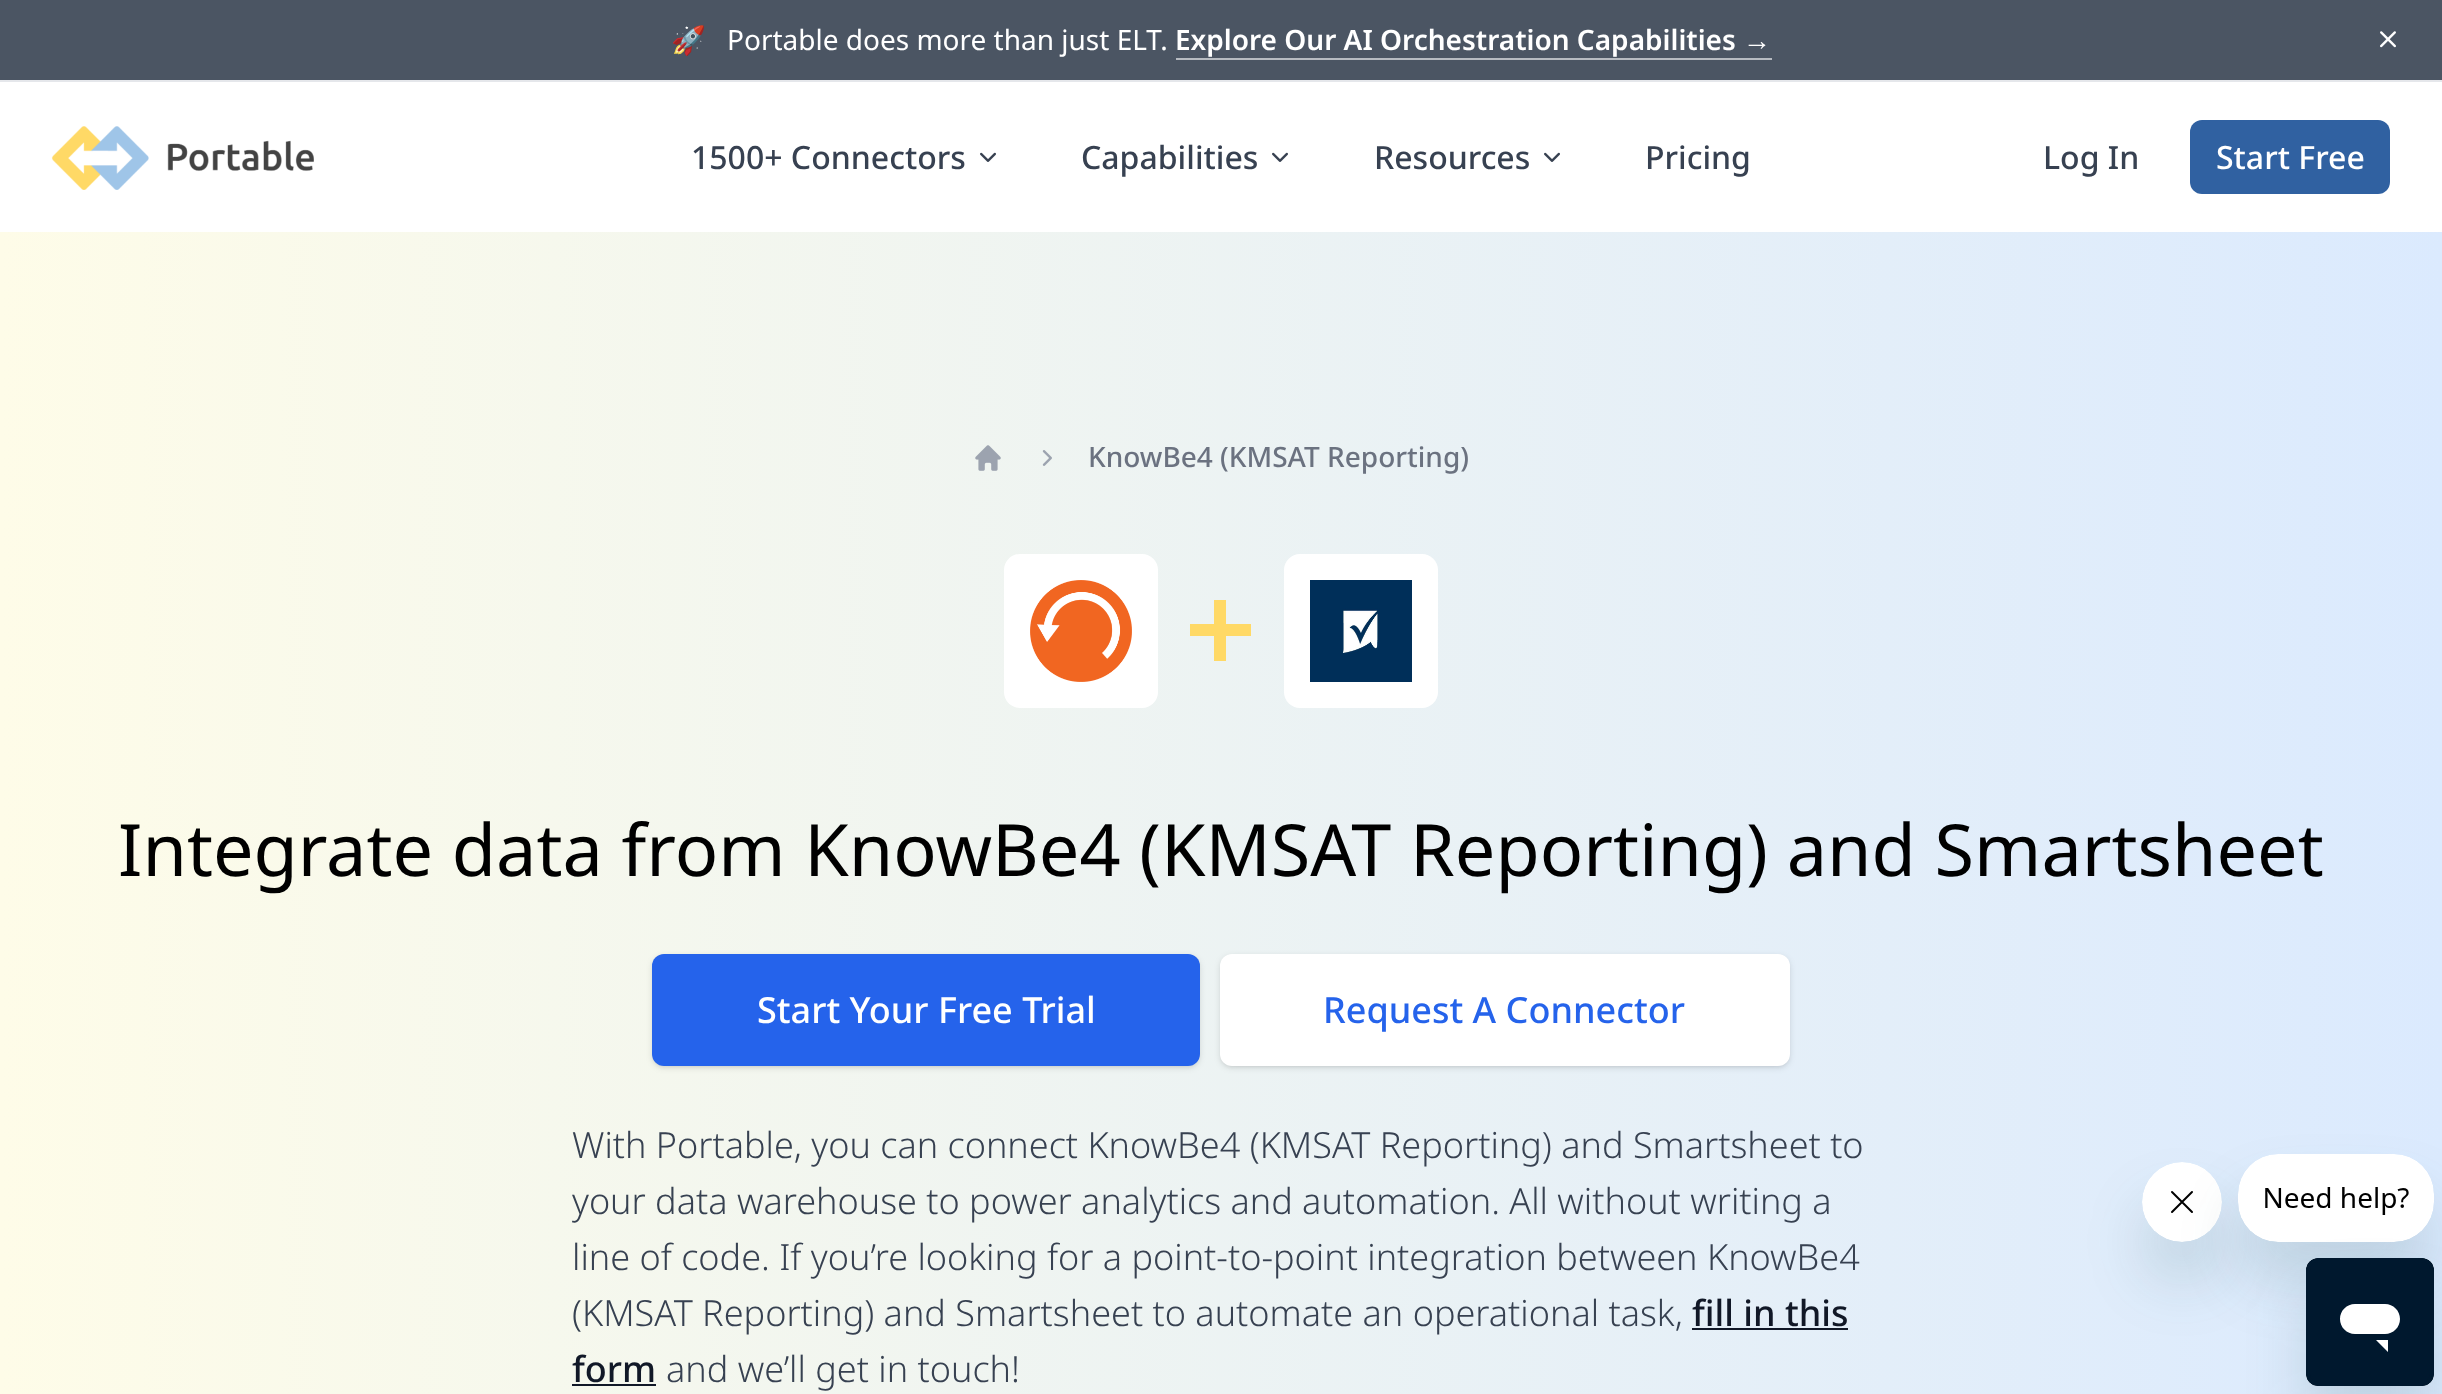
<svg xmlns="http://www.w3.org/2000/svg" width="2442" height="1394">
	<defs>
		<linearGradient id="g1" gradientUnits="userSpaceOnUse" x1="0" y1="917" x2="2442" y2="917"><stop offset="0" stop-color="#FEFCE8" /><stop offset="1" stop-color="#DBEAFE" /></linearGradient>
	</defs>
	<rect width="100%" height="100%" fill="#FFFFFF" />
	<rect x="0" y="80" width="2442" height="2" fill="#E5E7EB" />
	<rect x="0" y="0" width="2442" height="80" fill="#4B5563" />
	<text x="671" y="50" font-family="Noto Color Emoji" font-size="28" fill="#FFFFFF">🚀</text>
	<text x="727" y="50" font-family="Noto Sans" font-size="28" fill="#FFFFFF">Portable does more than just ELT.</text>
	<text x="1175" y="50" font-family="Noto Sans" font-size="28" font-weight="600" fill="#FFFFFF">Explore Our AI Orchestration Capabilities</text>
	<text x="1743" y="50" font-family="Liberation Sans" font-size="28" font-weight="700" fill="#FFFFFF">→</text>
	<rect x="1176" y="58" width="596" height="2" fill="#B7BBC1" />
	<image x="2380" y="31" width="16" height="17" href="assets/img1.png" />
	<image x="51" y="126" width="263" height="64" href="assets/img2.png" />
	<text x="691" y="169" font-family="Noto Sans" font-size="32" font-weight="500" fill="#374151">1500+ Connectors</text>
	<image x="980" y="152" width="16" height="10" href="assets/img3.png" />
	<text x="1081" y="169" font-family="Noto Sans" font-size="32" font-weight="500" fill="#374151">Capabilities</text>
	<image x="1272" y="152" width="16" height="10" href="assets/img3.png" />
	<text x="1374" y="169" font-family="Noto Sans" font-size="32" font-weight="500" fill="#374151">Resources</text>
	<image x="1544" y="152" width="16" height="10" href="assets/img3.png" />
	<g font-family="Noto Sans" font-size="32" font-weight="500" fill="#374151">
		<text x="1645" y="169">Pricing</text>
		<text x="2043" y="169">Log In</text>
	</g>
	<rect x="2190" y="120" width="200" height="74" rx="12" fill="#3061A1" />
	<text x="2216" y="169" font-family="Noto Sans" font-size="32" font-weight="500" fill="#FFFFFF">Start Free</text>
	<rect x="0" y="232" width="2442" height="1162" fill="url(#g1)" />
	<image x="975" y="445" width="26" height="26" href="assets/img4.png" />
	<image x="1042" y="450" width="10" height="16" href="assets/img5.png" />
	<text x="1088" y="467" font-family="Noto Sans" font-size="28" font-weight="500" fill="#6B7280">KnowBe4 (KMSAT Reporting)</text>
	<rect x="1004" y="554" width="154" height="154" rx="16" fill="#FFFFFF" />
	<image x="1030" y="580" width="102" height="102" href="assets/img6.png" />
	<path d="M1190 636V624H1214V600H1226V624H1251V636H1226V661H1214V636Z" fill="#FFD966" />
	<rect x="1284" y="554" width="154" height="154" rx="16" fill="#FFFFFF" />
	<image x="1310" y="580" width="102" height="102" href="assets/img7.png" />
	<text x="118" y="876" font-family="Noto Sans" font-size="72" fill="#000000">Integrate data from KnowBe4 (KMSAT Reporting) and Smartsheet</text>
	<rect x="654" y="958" width="544" height="108" rx="10" fill="#000000" fill-opacity="0.1" filter="blur(2px)" />
	<rect x="652" y="956" width="548" height="112" rx="12" fill="#000000" fill-opacity="0.1" filter="blur(3px)" />
	<rect x="652" y="954" width="548" height="112" rx="12" fill="#2563EB" />
	<text x="757" y="1023" font-family="Noto Sans" font-size="36" font-weight="500" fill="#FFFFFF">Start Your Free Trial</text>
	<rect x="1222" y="958" width="566" height="108" rx="10" fill="#000000" fill-opacity="0.1" filter="blur(2px)" />
	<rect x="1220" y="956" width="570" height="112" rx="12" fill="#000000" fill-opacity="0.1" filter="blur(3px)" />
	<rect x="1220" y="954" width="570" height="112" rx="12" fill="#FFFFFF" />
	<text x="1323" y="1023" font-family="Noto Sans" font-size="36" font-weight="500" fill="#2563EB">Request A Connector</text>
	<g font-family="Noto Sans" font-size="36" font-weight="300" fill="#374151">
		<text x="572" y="1158">With Portable, you can connect KnowBe4 (KMSAT Reporting) and Smartsheet to</text>
		<text x="572" y="1214">your data warehouse to power analytics and automation. All without writing a</text>
		<text x="572" y="1270">line of code. If you’re looking for a point-to-point integration between KnowBe4</text>
		<text x="572" y="1326">(KMSAT Reporting) and Smartsheet to automate an operational task,</text>
	</g>
	<text x="1692" y="1326" font-family="Noto Sans" font-size="36" font-weight="500" fill="#111827">fill in this</text>
	<rect x="1692" y="1328" width="156" height="2" fill="#111827" />
	<text x="572" y="1382" font-family="Noto Sans" font-size="36" font-weight="500" fill="#111827">form</text>
	<rect x="572" y="1384" width="84" height="2" fill="#111827" />
	<text x="666" y="1382" font-family="Noto Sans" font-size="36" font-weight="300" fill="#374151">and we’ll get in touch!</text>
	<rect x="2142" y="1202" width="80" height="80" rx="40" fill="#17494D" fill-opacity="0.15" filter="blur(30px)" />
	<image x="2142" y="1162" width="80" height="80" href="assets/img9.png" />
	<rect x="2238" y="1194" width="196" height="88" rx="40" fill="#17494D" fill-opacity="0.15" filter="blur(30px)" />
	<image x="2238" y="1154" width="196" height="88" href="assets/img8.png" />
	<rect x="2306" y="1298" width="128" height="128" rx="12" fill="#17494D" fill-opacity="0.15" filter="blur(30px)" />
	<image x="2306" y="1258" width="128" height="128" href="assets/img10.png" />
</svg>
